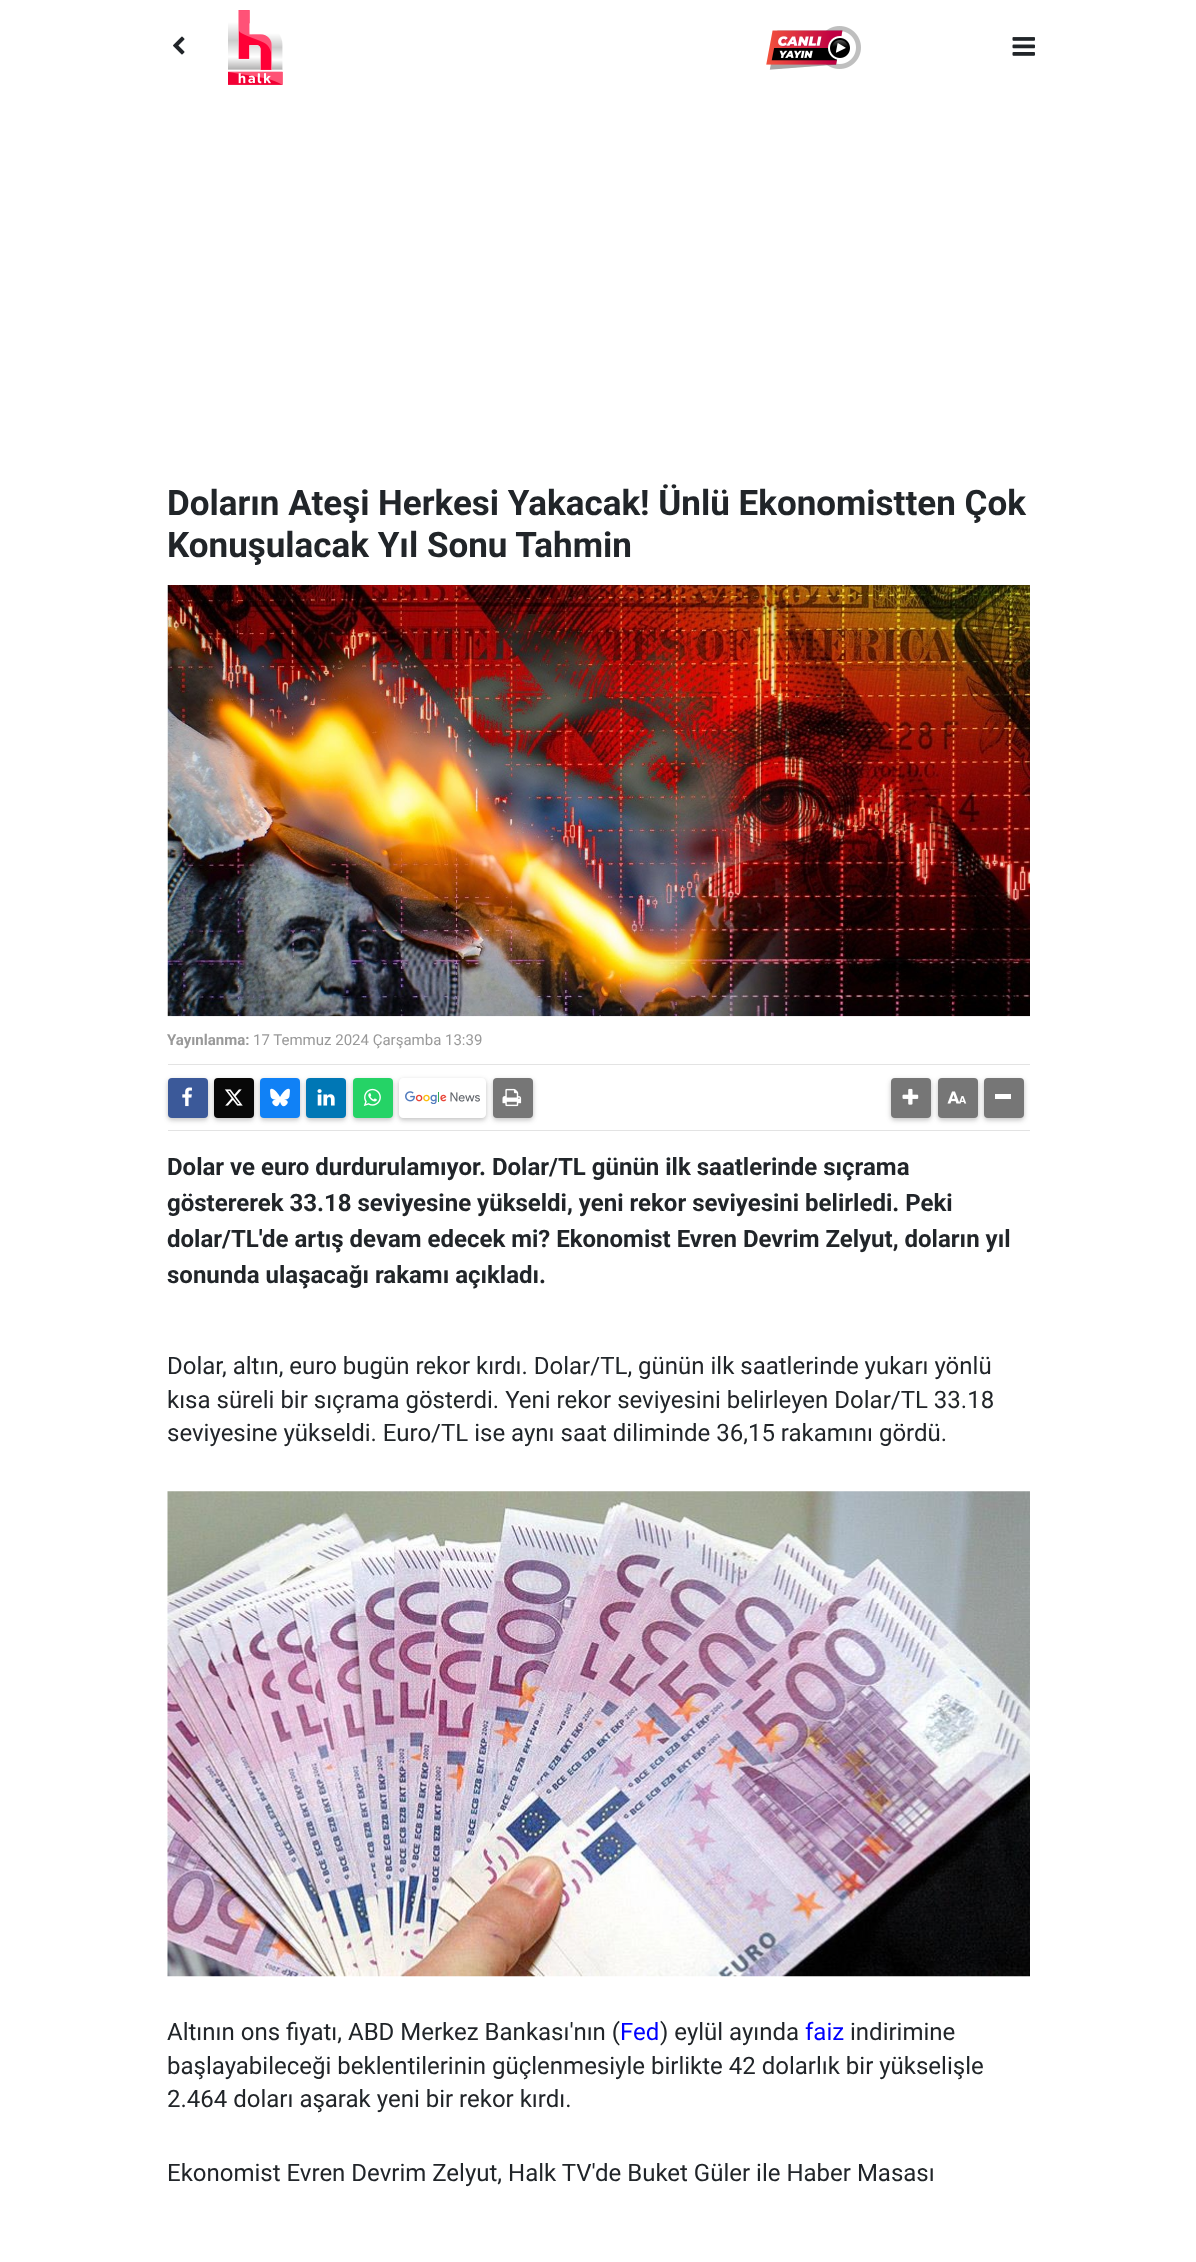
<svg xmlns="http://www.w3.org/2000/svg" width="1196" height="2262">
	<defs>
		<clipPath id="clip1"><path d="M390 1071H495V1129H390ZM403 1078H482C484 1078 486 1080 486 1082V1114C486 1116 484 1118 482 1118H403C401 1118 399 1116 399 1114V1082C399 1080 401 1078 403 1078Z" clip-rule="evenodd" /></clipPath>
	</defs>
	<rect width="100%" height="100%" fill="#FFFFFF" />
	<image x="173" y="36" width="12" height="19" href="assets/img1.png" />
	<image x="228" y="10" width="55" height="75" href="assets/img2.png" />
	<image x="766" y="26" width="95" height="44" href="assets/img3.png" />
	<image x="1012" y="37" width="23" height="19" href="assets/img4.png" />
	<g font-family="Roboto" font-size="35" font-weight="700" fill="#212529">
		<text x="167" y="515">Doların Ateşi Herkesi Yakacak! Ünlü Ekonomistten Çok</text>
		<text x="167" y="557">Konuşulacak Yıl Sonu Tahmin</text>
	</g>
	<image x="167" y="585" width="863" height="432" href="assets/img5.png" />
	<text x="167" y="1045" font-family="Roboto" font-size="15" font-weight="700" fill="#999999">Yayınlanma:</text>
	<text x="253" y="1045" font-family="Roboto" font-size="15" fill="#999999">17 Temmuz 2024 Çarşamba 13:39</text>
	<rect x="168" y="1064" width="862" height="1" fill="#E3E3E3" />
	<rect x="168" y="1130" width="862" height="1" fill="#E3E3E3" />
	<rect x="168" y="1080" width="40" height="40" rx="4" fill="#323232" fill-opacity="0.3" filter="blur(2.5px)" />
	<rect x="168" y="1078" width="40" height="40" rx="4" fill="#3B5999" />
	<image x="182" y="1087" width="10" height="20" href="assets/img6.png" />
	<rect x="214" y="1080" width="40" height="40" rx="4" fill="#323232" fill-opacity="0.3" filter="blur(2.5px)" />
	<rect x="214" y="1078" width="40" height="40" rx="4" fill="#080808" />
	<image x="224" y="1089" width="19" height="17" href="assets/img7.png" />
	<rect x="260" y="1080" width="40" height="40" rx="4" fill="#323232" fill-opacity="0.3" filter="blur(2.5px)" />
	<rect x="260" y="1078" width="40" height="40" rx="4" fill="#1081F6" />
	<image x="270" y="1088" width="20" height="19" href="assets/img8.png" />
	<rect x="306" y="1080" width="40" height="40" rx="4" fill="#323232" fill-opacity="0.3" filter="blur(2.5px)" />
	<rect x="306" y="1078" width="40" height="40" rx="4" fill="#0077B5" />
	<image x="317" y="1089" width="18" height="17" href="assets/img9.png" />
	<rect x="353" y="1080" width="40" height="40" rx="4" fill="#323232" fill-opacity="0.3" filter="blur(2.5px)" />
	<rect x="353" y="1078" width="40" height="40" rx="4" fill="#25D366" />
	<image x="363" y="1088" width="18" height="19" href="assets/img10.png" />
	<g clip-path="url(#clip1)">
		<rect x="399" y="1080" width="87" height="40" rx="4" fill="#323232" fill-opacity="0.3" filter="blur(2.5px)" />
	</g>
	<image x="405" y="1091" width="75" height="13" href="assets/img11.png" />
	<rect x="493" y="1080" width="40" height="40" rx="4" fill="#323232" fill-opacity="0.3" filter="blur(2.5px)" />
	<rect x="493" y="1078" width="40" height="40" rx="4" fill="#767676" />
	<image x="502" y="1088" width="20" height="19" href="assets/img12.png" />
	<rect x="891" y="1080" width="40" height="40" rx="4" fill="#323232" fill-opacity="0.3" filter="blur(2.5px)" />
	<rect x="891" y="1078" width="40" height="40" rx="4" fill="#767676" />
	<image x="902" y="1088" width="17" height="17" href="assets/img13.png" />
	<rect x="938" y="1080" width="40" height="40" rx="4" fill="#323232" fill-opacity="0.3" filter="blur(2.5px)" />
	<rect x="938" y="1078" width="40" height="40" rx="4" fill="#767676" />
	<image x="947" y="1091" width="20" height="13" href="assets/img14.png" />
	<rect x="984" y="1080" width="40" height="40" rx="4" fill="#323232" fill-opacity="0.3" filter="blur(2.5px)" />
	<rect x="984" y="1078" width="40" height="40" rx="4" fill="#767676" />
	<rect x="995" y="1094" width="16" height="5" fill="#FFFFFF" />
	<g font-family="Roboto" font-size="24" font-weight="700" fill="#212529">
		<text x="167" y="1175">Dolar ve euro durdurulamıyor. Dolar/TL günün ilk saatlerinde sıçrama</text>
		<text x="167" y="1211">göstererek 33.18 seviyesine yükseldi, yeni rekor seviyesini belirledi. Peki</text>
		<text x="167" y="1247">dolar/TL'de artış devam edecek mi? Ekonomist Evren Devrim Zelyut, doların yıl</text>
		<text x="167" y="1283">sonunda ulaşacağı rakamı açıkladı.</text>
	</g>
	<g font-family="Roboto" font-size="24" fill="#212529">
		<text x="167" y="1374">Dolar, altın, euro bugün rekor kırdı. Dolar/TL, günün ilk saatlerinde yukarı yönlü</text>
		<text x="167" y="1408">kısa süreli bir sıçrama gösterdi. Yeni rekor seviyesini belirleyen Dolar/TL 33.18</text>
		<text x="167" y="1441">seviyesine yükseldi. Euro/TL ise aynı saat diliminde 36,15 rakamını gördü.</text>
	</g>
	<image x="167" y="1491" width="863" height="486" href="assets/img15.png" />
	<text x="167" y="2040" font-family="Roboto" font-size="24" fill="#212529">Altının ons fiyatı, ABD Merkez Bankası'nın (</text>
	<text x="620" y="2040" font-family="Roboto" font-size="24" fill="#0000FF">Fed</text>
	<text x="660" y="2040" font-family="Roboto" font-size="24" fill="#212529">) eylül ayında</text>
	<text x="805" y="2040" font-family="Roboto" font-size="24" fill="#0000FF">faiz</text>
	<g font-family="Roboto" font-size="24" fill="#212529">
		<text x="850" y="2040">indirimine</text>
		<text x="167" y="2074">başlayabileceği beklentilerinin güçlenmesiyle birlikte 42 dolarlık bir yükselişle</text>
		<text x="167" y="2107">2.464 doları aşarak yeni bir rekor kırdı.</text>
		<text x="167" y="2181">Ekonomist Evren Devrim Zelyut, Halk TV'de Buket Güler ile Haber Masası</text>
	</g>
</svg>
